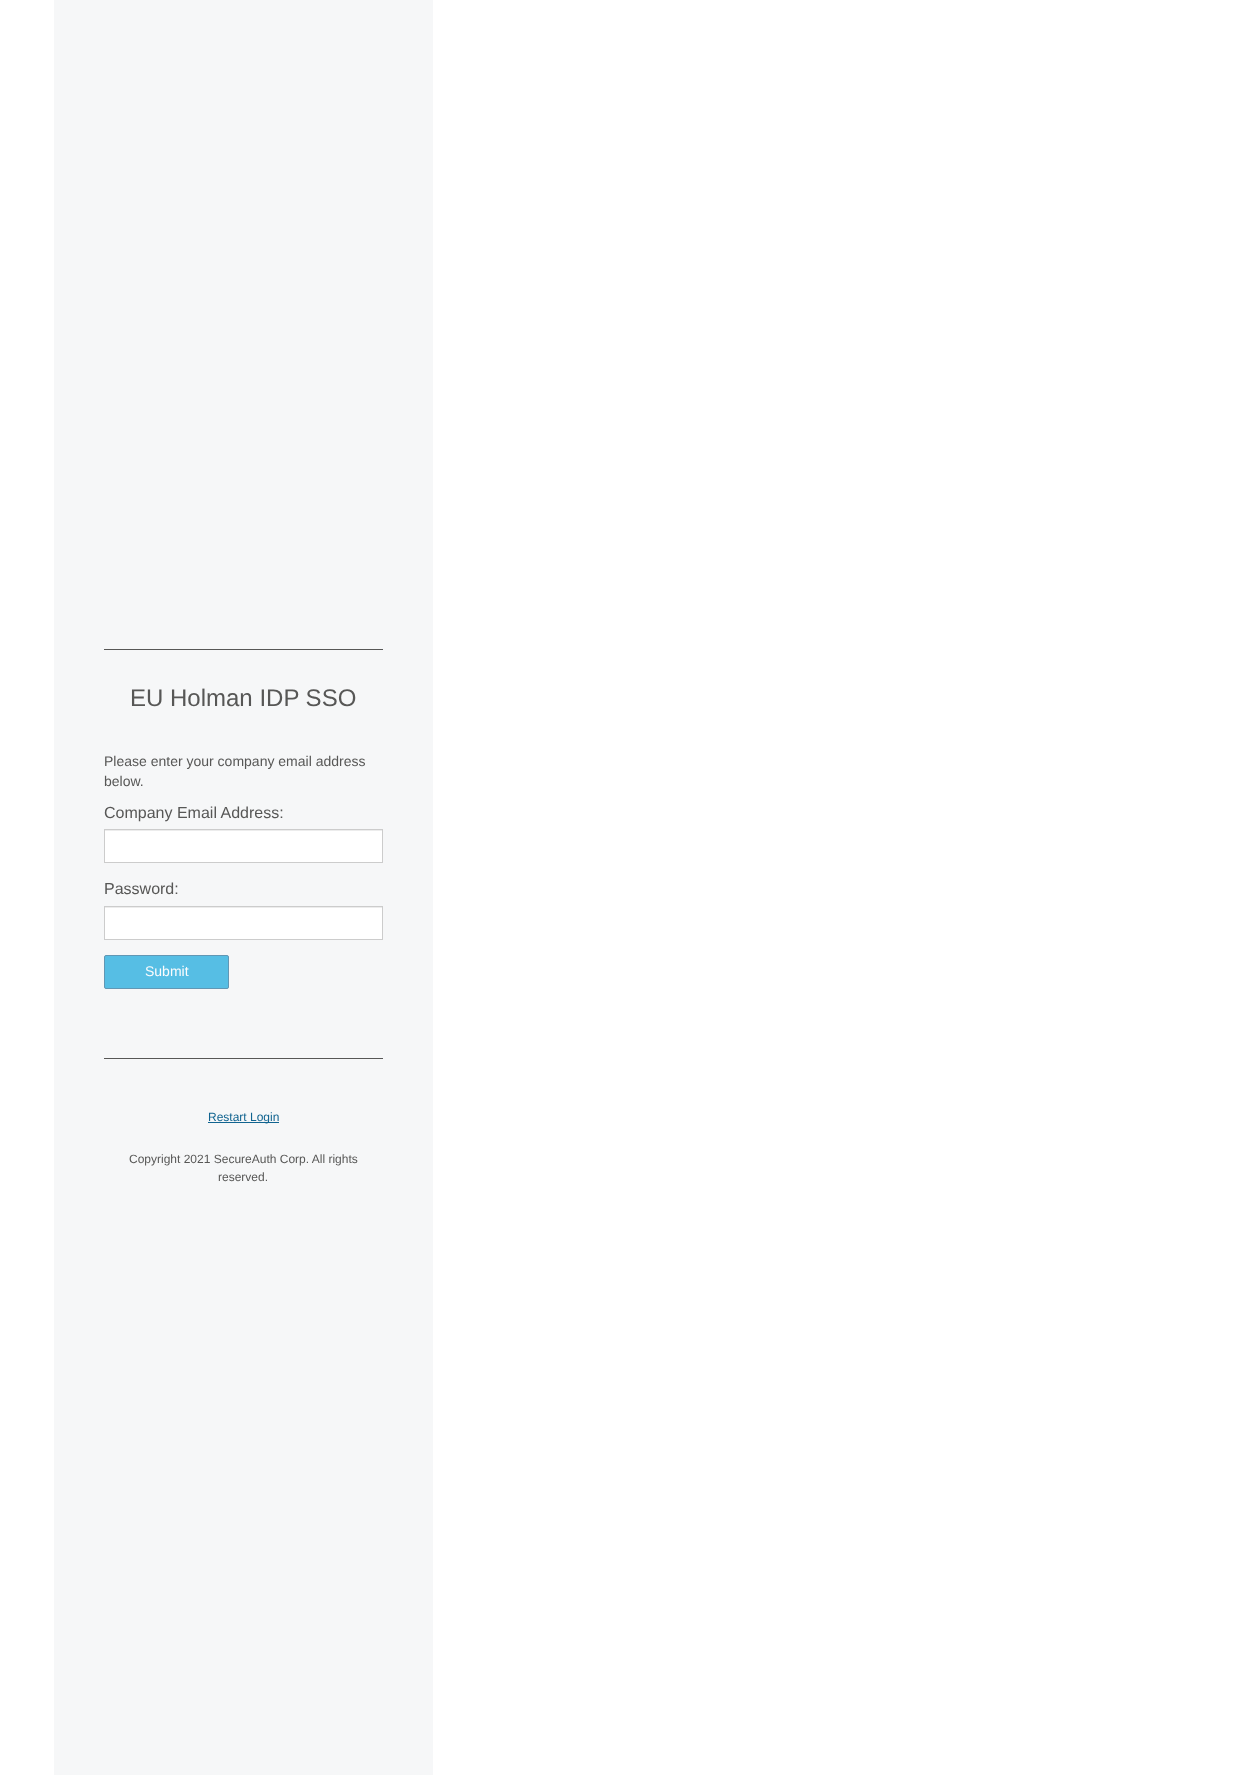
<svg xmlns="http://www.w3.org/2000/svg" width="1247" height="1775">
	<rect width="100%" height="100%" fill="#FFFFFF" />
	<rect x="54" y="0" width="379" height="1775" fill="#F6F7F8" />
	<rect x="104" y="649" width="279" height="1" fill="#575756" />
	<text x="130" y="706" font-family="Liberation Sans" font-size="24" fill="#575756">EU Holman IDP SSO</text>
	<g font-family="Liberation Sans" font-size="14" fill="#575756">
		<text x="104" y="766">Please enter your company email address</text>
		<text x="104" y="786">below.</text>
	</g>
	<text x="104" y="818" font-family="Liberation Sans" font-size="16" fill="#575756">Company Email Address:</text>
	<rect x="105" y="831" width="277" height="31" fill="#FFFFFF" />
	<rect x="105" y="830" width="277" height="1" fill="#ECECEC" />
	<rect x="104.5" y="829.5" width="278" height="33" fill="none" stroke="#CCCCCC" />
	<text x="104" y="894" font-family="Liberation Sans" font-size="16" fill="#575756">Password:</text>
	<rect x="105" y="908" width="277" height="31" fill="#FFFFFF" />
	<rect x="105" y="907" width="277" height="1" fill="#ECECEC" />
	<rect x="104.5" y="906.5" width="278" height="33" fill="none" stroke="#CCCCCC" />
	<rect x="104.5" y="955.5" width="124" height="33" rx="1.5" fill="#56BEE4" stroke="#6197B4" />
	<text x="145" y="976" font-family="Liberation Sans" font-size="14" fill="#FCFCFD">Submit</text>
	<rect x="104" y="1058" width="279" height="1" fill="#575756" />
	<rect x="208" y="1122" width="71" height="1" fill="#116490" />
	<text x="208" y="1121" font-family="Liberation Sans" font-size="12" fill="#116490">Restart Login</text>
	<g font-family="Liberation Sans" font-size="12" fill="#575756">
		<text x="129" y="1163">Copyright 2021 SecureAuth Corp. All rights</text>
		<text x="218" y="1181">reserved.</text>
	</g>
</svg>
